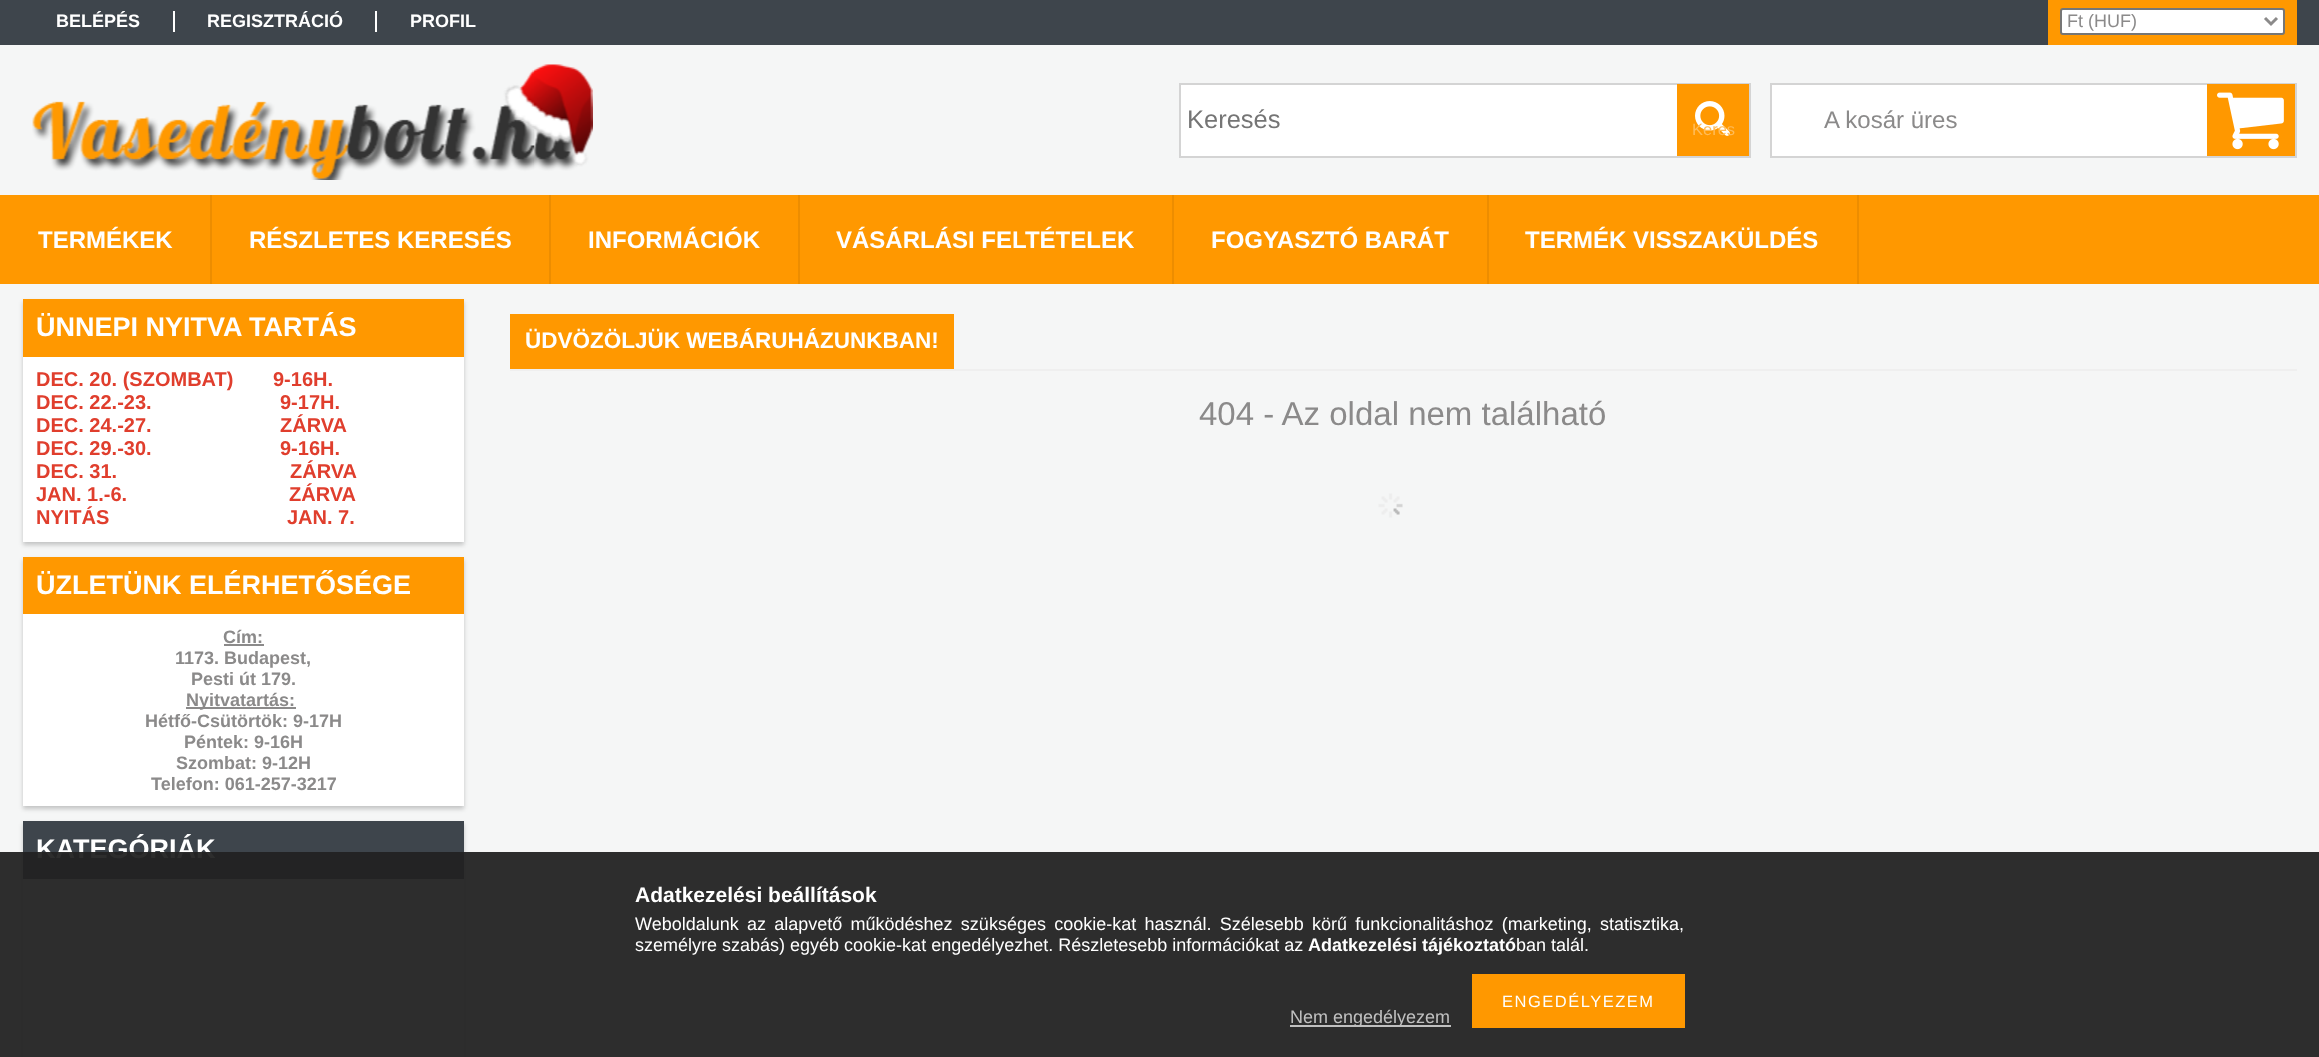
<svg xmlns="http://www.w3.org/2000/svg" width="2319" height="1057">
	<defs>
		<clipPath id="clip1"><rect x="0" y="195" width="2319" height="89" /></clipPath>
		<clipPath id="clip2"><path d="M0 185H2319V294H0ZM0 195H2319V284H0Z" clip-rule="evenodd" /></clipPath>
	</defs>
	<rect width="100%" height="100%" fill="#F5F6F6" />
	<rect x="0" y="0" width="2319" height="45" fill="#3E454C" />
	<text x="56" y="27" font-family="Liberation Sans" font-size="18" font-weight="700" fill="#FFFFFF">BELÉPÉS</text>
	<rect x="173" y="11" width="2" height="21" fill="#FFFFFF" />
	<text x="207" y="27" font-family="Liberation Sans" font-size="18" font-weight="700" fill="#FFFFFF">REGISZTRÁCIÓ</text>
	<rect x="375" y="11" width="2" height="21" fill="#FFFFFF" />
	<text x="410" y="27" font-family="Liberation Sans" font-size="18" font-weight="700" fill="#FFFFFF">PROFIL</text>
	<rect x="2048" y="0" width="249" height="45" fill="#FF9800" />
	<rect x="2061" y="9" width="223" height="25" rx="2" fill="#FFFFFF" stroke="#767676" stroke-width="2" />
	<path d="M2265 18L2271 24L2277 18" fill="none" stroke="#8B8A8A" stroke-width="3" />
	<text x="2067" y="27" font-family="Liberation Sans" font-size="18" fill="#8B8A8A">Ft (HUF)</text>
	<image x="32" y="64" width="561" height="116" href="assets/img1.png" />
	<rect x="1181" y="85" width="496" height="71" fill="#FFFFFF" />
	<rect x="1180" y="84" width="570" height="73" fill="none" stroke="#D4D4D4" stroke-width="2" />
	<text x="1187" y="128" font-family="Liberation Sans" font-size="25.5" fill="#757575">Keresés</text>
	<rect x="1677" y="84" width="72" height="72" fill="#FF9800" />
	<image x="1695" y="101" width="35" height="35" href="assets/img2.png" />
	<text x="1692" y="135" font-family="Liberation Sans" font-size="16.5" fill="#FFBC59">Keres</text>
	<rect x="1772" y="85" width="435" height="71" fill="#FFFFFF" />
	<rect x="1771" y="84" width="525" height="73" fill="none" stroke="#D4D4D4" stroke-width="2" />
	<text x="1824" y="128" font-family="Liberation Sans" font-size="24" fill="#8B8A8A">A kosár üres</text>
	<rect x="2207" y="84" width="88" height="72" fill="#FF9800" />
	<image x="2217" y="92" width="67" height="58" href="assets/img3.png" />
	<rect x="0" y="195" width="2319" height="89" fill="#FF9800" />
	<g clip-path="url(#clip1)">
		<g clip-path="url(#clip2)">
			<rect x="6" y="195" width="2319" height="89" fill="#000000" fill-opacity="0.2" filter="blur(3px)" />
		</g>
	</g>
	<rect x="210" y="195" width="2" height="89" fill="#000000" fill-opacity="0.07" />
	<text x="38" y="248" font-family="Liberation Sans" font-size="24" font-weight="700" fill="#FFFFFF">TERMÉKEK</text>
	<rect x="549" y="195" width="2" height="89" fill="#000000" fill-opacity="0.07" />
	<text x="249" y="248" font-family="Liberation Sans" font-size="24" font-weight="700" fill="#FFFFFF">RÉSZLETES KERESÉS</text>
	<rect x="798" y="195" width="2" height="89" fill="#000000" fill-opacity="0.07" />
	<text x="588" y="248" font-family="Liberation Sans" font-size="24" font-weight="700" fill="#FFFFFF">INFORMÁCIÓK</text>
	<rect x="1172" y="195" width="2" height="89" fill="#000000" fill-opacity="0.07" />
	<text x="836" y="248" font-family="Liberation Sans" font-size="24" font-weight="700" fill="#FFFFFF">VÁSÁRLÁSI FELTÉTELEK</text>
	<rect x="1487" y="195" width="2" height="89" fill="#000000" fill-opacity="0.07" />
	<text x="1211" y="248" font-family="Liberation Sans" font-size="24" font-weight="700" fill="#FFFFFF">FOGYASZTÓ BARÁT</text>
	<rect x="1857" y="195" width="2" height="89" fill="#000000" fill-opacity="0.07" />
	<text x="1525" y="248" font-family="Liberation Sans" font-size="24" font-weight="700" fill="#FFFFFF">TERMÉK VISSZAKÜLDÉS</text>
	<rect x="23" y="302" width="441" height="243" fill="#000000" fill-opacity="0.2" filter="blur(2px)" />
	<rect x="23" y="299" width="441" height="58" fill="#FF9800" />
	<text x="36" y="336" font-family="Liberation Sans" font-size="27" font-weight="700" fill="#FFFFFF">ÜNNEPI NYITVA TARTÁS</text>
	<rect x="23" y="357" width="441" height="185" fill="#FFFFFF" />
	<g font-family="Liberation Sans" font-size="20" font-weight="700" fill="#E03E2D">
		<text x="36" y="386">DEC. 20. (SZOMBAT)</text>
		<text x="273" y="386">9-16H.</text>
		<text x="36" y="409">DEC. 22.-23.</text>
		<text x="280" y="409">9-17H.</text>
		<text x="36" y="432">DEC. 24.-27.</text>
		<text x="280" y="432">ZÁRVA</text>
		<text x="36" y="455">DEC. 29.-30.</text>
		<text x="280" y="455">9-16H.</text>
		<text x="36" y="478">DEC. 31.</text>
		<text x="290" y="478">ZÁRVA</text>
		<text x="36" y="501">JAN. 1.-6.</text>
		<text x="289" y="501">ZÁRVA</text>
		<text x="36" y="524">NYITÁS</text>
		<text x="287" y="524">JAN. 7.</text>
	</g>
	<rect x="23" y="560" width="441" height="249" fill="#000000" fill-opacity="0.2" filter="blur(2px)" />
	<rect x="23" y="557" width="441" height="57" fill="#FF9800" />
	<text x="36" y="594" font-family="Liberation Sans" font-size="27" font-weight="700" fill="#FFFFFF">ÜZLETÜNK ELÉRHETŐSÉGE</text>
	<rect x="23" y="614" width="441" height="192" fill="#FFFFFF" />
	<text x="223" y="643" font-family="Liberation Sans" font-size="18" font-weight="700" fill="#8B8A8A">Cím:</text>
	<rect x="224" y="644" width="40" height="2" fill="#8B8A8A" />
	<g font-family="Liberation Sans" font-size="18" font-weight="700" fill="#8B8A8A">
		<text x="175" y="664">1173. Budapest,</text>
		<text x="191" y="685">Pesti út 179.</text>
	</g>
	<rect x="186" y="707" width="110" height="2" fill="#8B8A8A" />
	<g font-family="Liberation Sans" font-size="18" font-weight="700" fill="#8B8A8A">
		<text x="186" y="706">Nyitvatartás:</text>
		<text x="145" y="727">Hétfő-Csütörtök: 9-17H</text>
		<text x="184" y="748">Péntek: 9-16H</text>
		<text x="176" y="769">Szombat: 9-12H</text>
		<text x="151" y="790">Telefon: 061-257-3217</text>
	</g>
	<rect x="23" y="824" width="441" height="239" fill="#000000" fill-opacity="0.2" filter="blur(2px)" />
	<rect x="23" y="821" width="441" height="58" fill="#3E454C" />
	<text x="36" y="858" font-family="Liberation Sans" font-size="27" font-weight="700" fill="#FFFFFF">KATEGÓRIÁK</text>
	<rect x="23" y="879" width="441" height="178" fill="#FFFFFF" />
	<rect x="510" y="369" width="1787" height="2" fill="#EFEFEF" />
	<rect x="510" y="314" width="444" height="55" fill="#FF9800" />
	<text x="525" y="348" font-family="Liberation Sans" font-size="22.5" font-weight="700" fill="#FFFFFF">ÜDVÖZÖLJÜK WEBÁRUHÁZUNKBAN!</text>
	<text x="1199" y="425" font-family="Liberation Sans" font-size="33" fill="#8B8A8A">404 - Az oldal nem található</text>
	<image x="1378" y="493" width="25" height="25" href="assets/img4.png" />
	<rect x="0" y="852" width="2319" height="205" fill="#222222" fill-opacity="0.95" />
	<text x="635" y="902" font-family="Liberation Sans" font-size="21" font-weight="700" fill="#FFFFFF">Adatkezelési beállítások</text>
	<g font-family="Liberation Sans" font-size="18" fill="#FFFFFF">
		<text x="635" y="930" word-spacing="3.25">Weboldalunk az alapvető működéshez szükséges cookie-kat használ. Szélesebb körű funkcionalitáshoz (marketing, statisztika,</text>
		<text x="635" y="951">személyre szabás) egyéb cookie-kat engedélyezhet. Részletesebb információkat az</text>
	</g>
	<text x="1308" y="951" font-family="Liberation Sans" font-size="18" font-weight="700" fill="#FFFFFF">Adatkezelési tájékoztató</text>
	<text x="1516" y="951" font-family="Liberation Sans" font-size="18" fill="#FFFFFF">ban talál.</text>
	<rect x="1472" y="974" width="213" height="54" fill="#FF9800" />
	<text x="1502" y="1007" font-family="Liberation Sans" font-size="16.5" letter-spacing="1.5" fill="#FFFFFF">ENGEDÉLYEZEM</text>
	<rect x="1290" y="1025" width="161" height="2" fill="#C0C0C0" />
	<text x="1290" y="1023" font-family="Liberation Sans" font-size="18" fill="#C0C0C0">Nem engedélyezem</text>
</svg>
